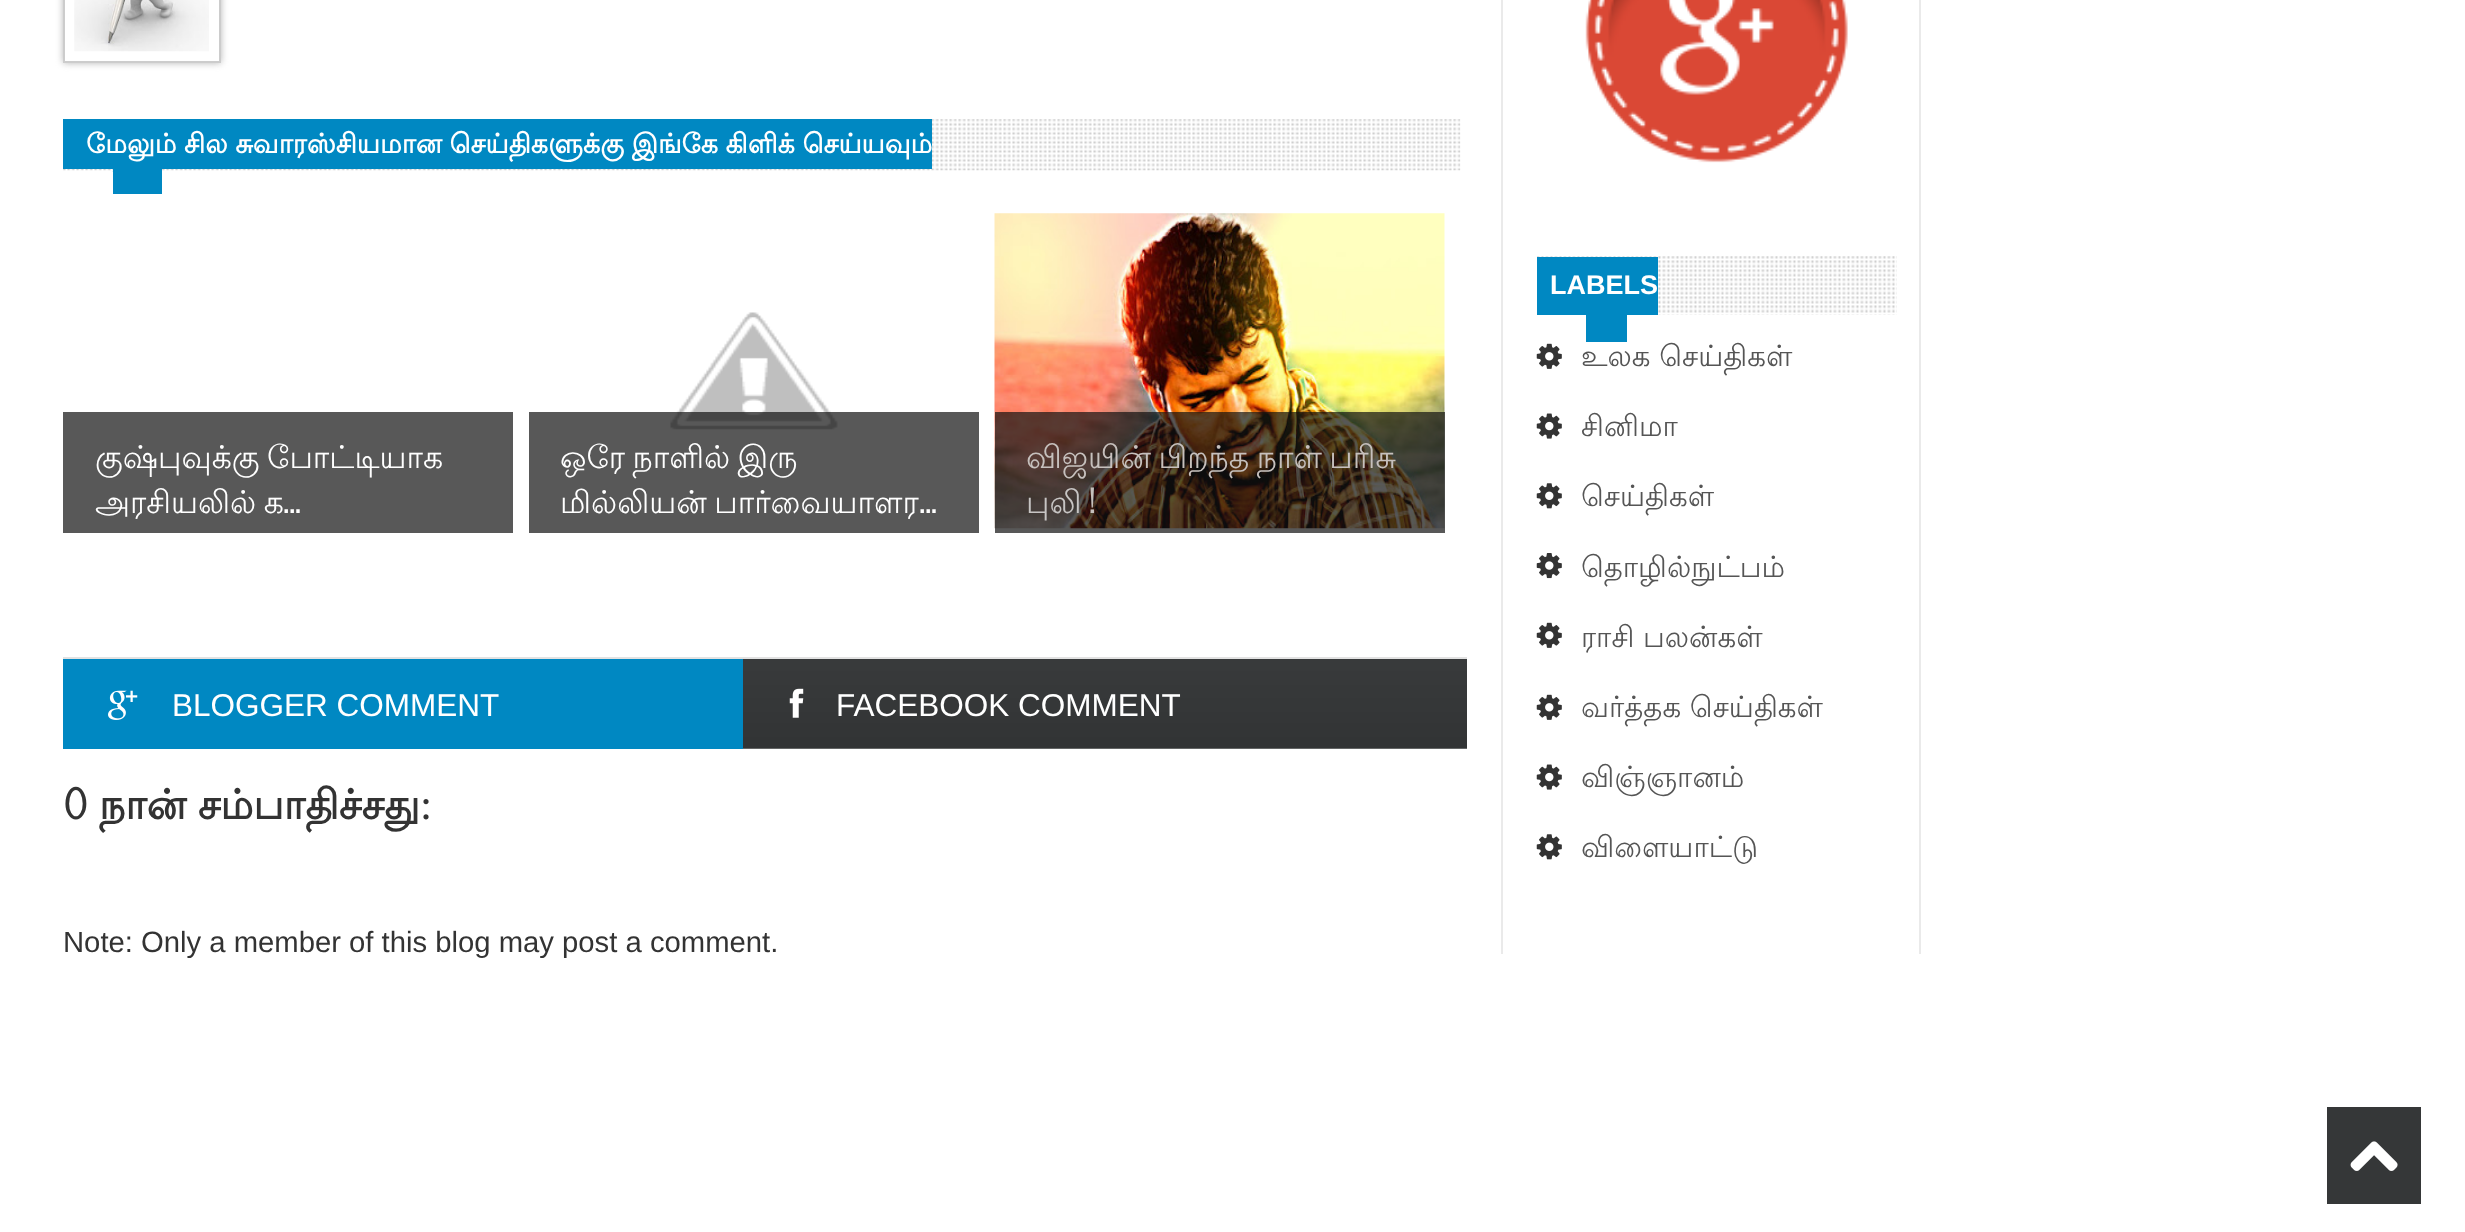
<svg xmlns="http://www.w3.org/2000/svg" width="2465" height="1232">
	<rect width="100%" height="100%" fill="#FFFFFF" />
	<rect x="63" y="657" width="1404" height="2" fill="#E2E2E2" />
	<rect x="63" y="-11" width="158" height="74" fill="#B5B5B5" filter="blur(3.5px)" />
	<rect x="64" y="-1" width="156" height="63" fill="#FFFFFF" stroke="#CCCCCC" stroke-width="2" />
	<image x="74" y="0" width="135" height="52" href="assets/img1.png" />
	<image x="63" y="119" width="1398" height="52" href="assets/img2.png" />
	<rect x="63" y="119" width="869" height="50" fill="#0088C2" />
	<rect x="113" y="169" width="49" height="25" fill="#0088C2" />
	<text x="86" y="153" word-spacing="-0.5" font-family="Lohit Tamil" font-size="27" font-weight="700" fill="#FFFFFF">மேலும் சில சுவாரஸ்சியமான செய்திகளுக்கு இங்கே கிளிக் செய்யவும்</text>
	<path d="M112.5 171H139.5L126 184.5Z" fill="#0088C2" />
	<rect x="63" y="412" width="450" height="121" fill="#585858" />
	<g font-family="Lohit Tamil" font-size="31.5" fill="#FFFFFF">
		<text x="95" y="468" word-spacing="-2">குஷ்புவுக்கு போட்டியாக</text>
		<text x="95" y="513" word-spacing="-2">அரசியலில் க</text>
	</g>
	<text x="283" y="513" font-family="Oswald" font-size="31.5" fill="#FFFFFF">...</text>
	<image x="670" y="312" width="168" height="118" href="assets/img3.png" />
	<rect x="529" y="412" width="450" height="121" fill="#111111" fill-opacity="0.7" />
	<g font-family="Lohit Tamil" font-size="31.5" fill="#FFFFFF">
		<text x="560" y="468" word-spacing="-2">ஒரே நாளில் இரு</text>
		<text x="560" y="513" word-spacing="-2">மில்லியன் பார்வையாளர</text>
	</g>
	<text x="919" y="513" font-family="Oswald" font-size="31.5" fill="#FFFFFF">...</text>
	<image x="994" y="213" width="451" height="316" href="assets/img4.png" />
	<rect x="995" y="412" width="450" height="121" fill="#111111" fill-opacity="0.7" />
	<text x="1026" y="468" word-spacing="-2" font-family="Lohit Tamil" font-size="31.5" fill="#C6C0BD">விஜயின் பிறந்த நாள் பரிசு</text>
	<text x="1026" y="513" font-family="Lohit Tamil" font-size="31.5" fill="#C7C5C4">புலி</text>
	<text x="1089" y="513" font-family="Oswald" font-size="31.5" fill="#C6C0BD">!</text>
	<image x="743" y="659" width="724" height="90" href="assets/img5.png" />
	<rect x="63" y="659" width="680" height="90" fill="#0088C2" />
	<image x="108" y="690" width="30" height="30" href="assets/img6.png" />
	<text x="172" y="716" font-family="Liberation Sans" font-size="31.5" fill="#FFFFFF">BLOGGER COMMENT</text>
	<image x="789" y="688" width="15" height="30" href="assets/img7.png" />
	<text x="836" y="716" font-family="Liberation Sans" font-size="31.5" fill="#FFFFFF">FACEBOOK COMMENT</text>
	<text x="63" y="819" word-spacing="-1" font-family="Lohit Tamil" font-size="41" font-weight="700" fill="#333333">0 நான் சம்பாதிச்சது:</text>
	<text x="63" y="952" font-family="Liberation Sans" font-size="29.25" fill="#333333">Note: Only a member of this blog may post a comment.</text>
	<rect x="1919" y="0" width="2" height="954" fill="#EAEAEA" />
	<rect x="1501" y="0" width="2" height="954" fill="#EAEAEA" />
	<image x="1585" y="0" width="263" height="163" href="assets/img8.png" />
	<image x="1537" y="256" width="360" height="59" href="assets/img9.png" />
	<rect x="1537" y="257" width="121" height="58" fill="#0088C2" />
	<text x="1550" y="294" font-family="Liberation Sans" font-size="27" font-weight="700" fill="#FFFFFF">LABELS</text>
	<rect x="1586" y="315" width="41" height="27" fill="#0088C2" />
	<image x="1536" y="343" width="26" height="26" href="assets/img10.png" />
	<text x="1581" y="366" font-family="Lohit Tamil" font-size="29.25" fill="#555555">உலக செய்திகள்</text>
	<image x="1536" y="413" width="26" height="26" href="assets/img11.png" />
	<text x="1581" y="436" font-family="Lohit Tamil" font-size="29.25" fill="#555555">சினிமா</text>
	<image x="1536" y="483" width="26" height="26" href="assets/img12.png" />
	<text x="1581" y="506" font-family="Lohit Tamil" font-size="29.25" fill="#555555">செய்திகள்</text>
	<image x="1536" y="553" width="26" height="26" href="assets/img13.png" />
	<text x="1581" y="577" font-family="Lohit Tamil" font-size="29.25" fill="#555555">தொழில்நுட்பம்</text>
	<image x="1536" y="622" width="26" height="26" href="assets/img10.png" />
	<text x="1581" y="647" font-family="Lohit Tamil" font-size="29.25" fill="#555555">ராசி பலன்கள்</text>
	<image x="1536" y="694" width="26" height="26" href="assets/img10.png" />
	<text x="1581" y="717" font-family="Lohit Tamil" font-size="29.25" fill="#555555">வர்த்தக செய்திகள்</text>
	<image x="1536" y="764" width="26" height="26" href="assets/img11.png" />
	<text x="1581" y="787" font-family="Lohit Tamil" font-size="29.25" fill="#555555">விஞ்ஞானம்</text>
	<image x="1536" y="834" width="26" height="26" href="assets/img12.png" />
	<text x="1581" y="857" font-family="Lohit Tamil" font-size="29.25" fill="#555555">விளையாட்டு</text>
	<rect x="2327" y="1107" width="94" height="97" fill="#353738" />
	<image x="2350" y="1141" width="48" height="30" href="assets/img14.png" />
</svg>
